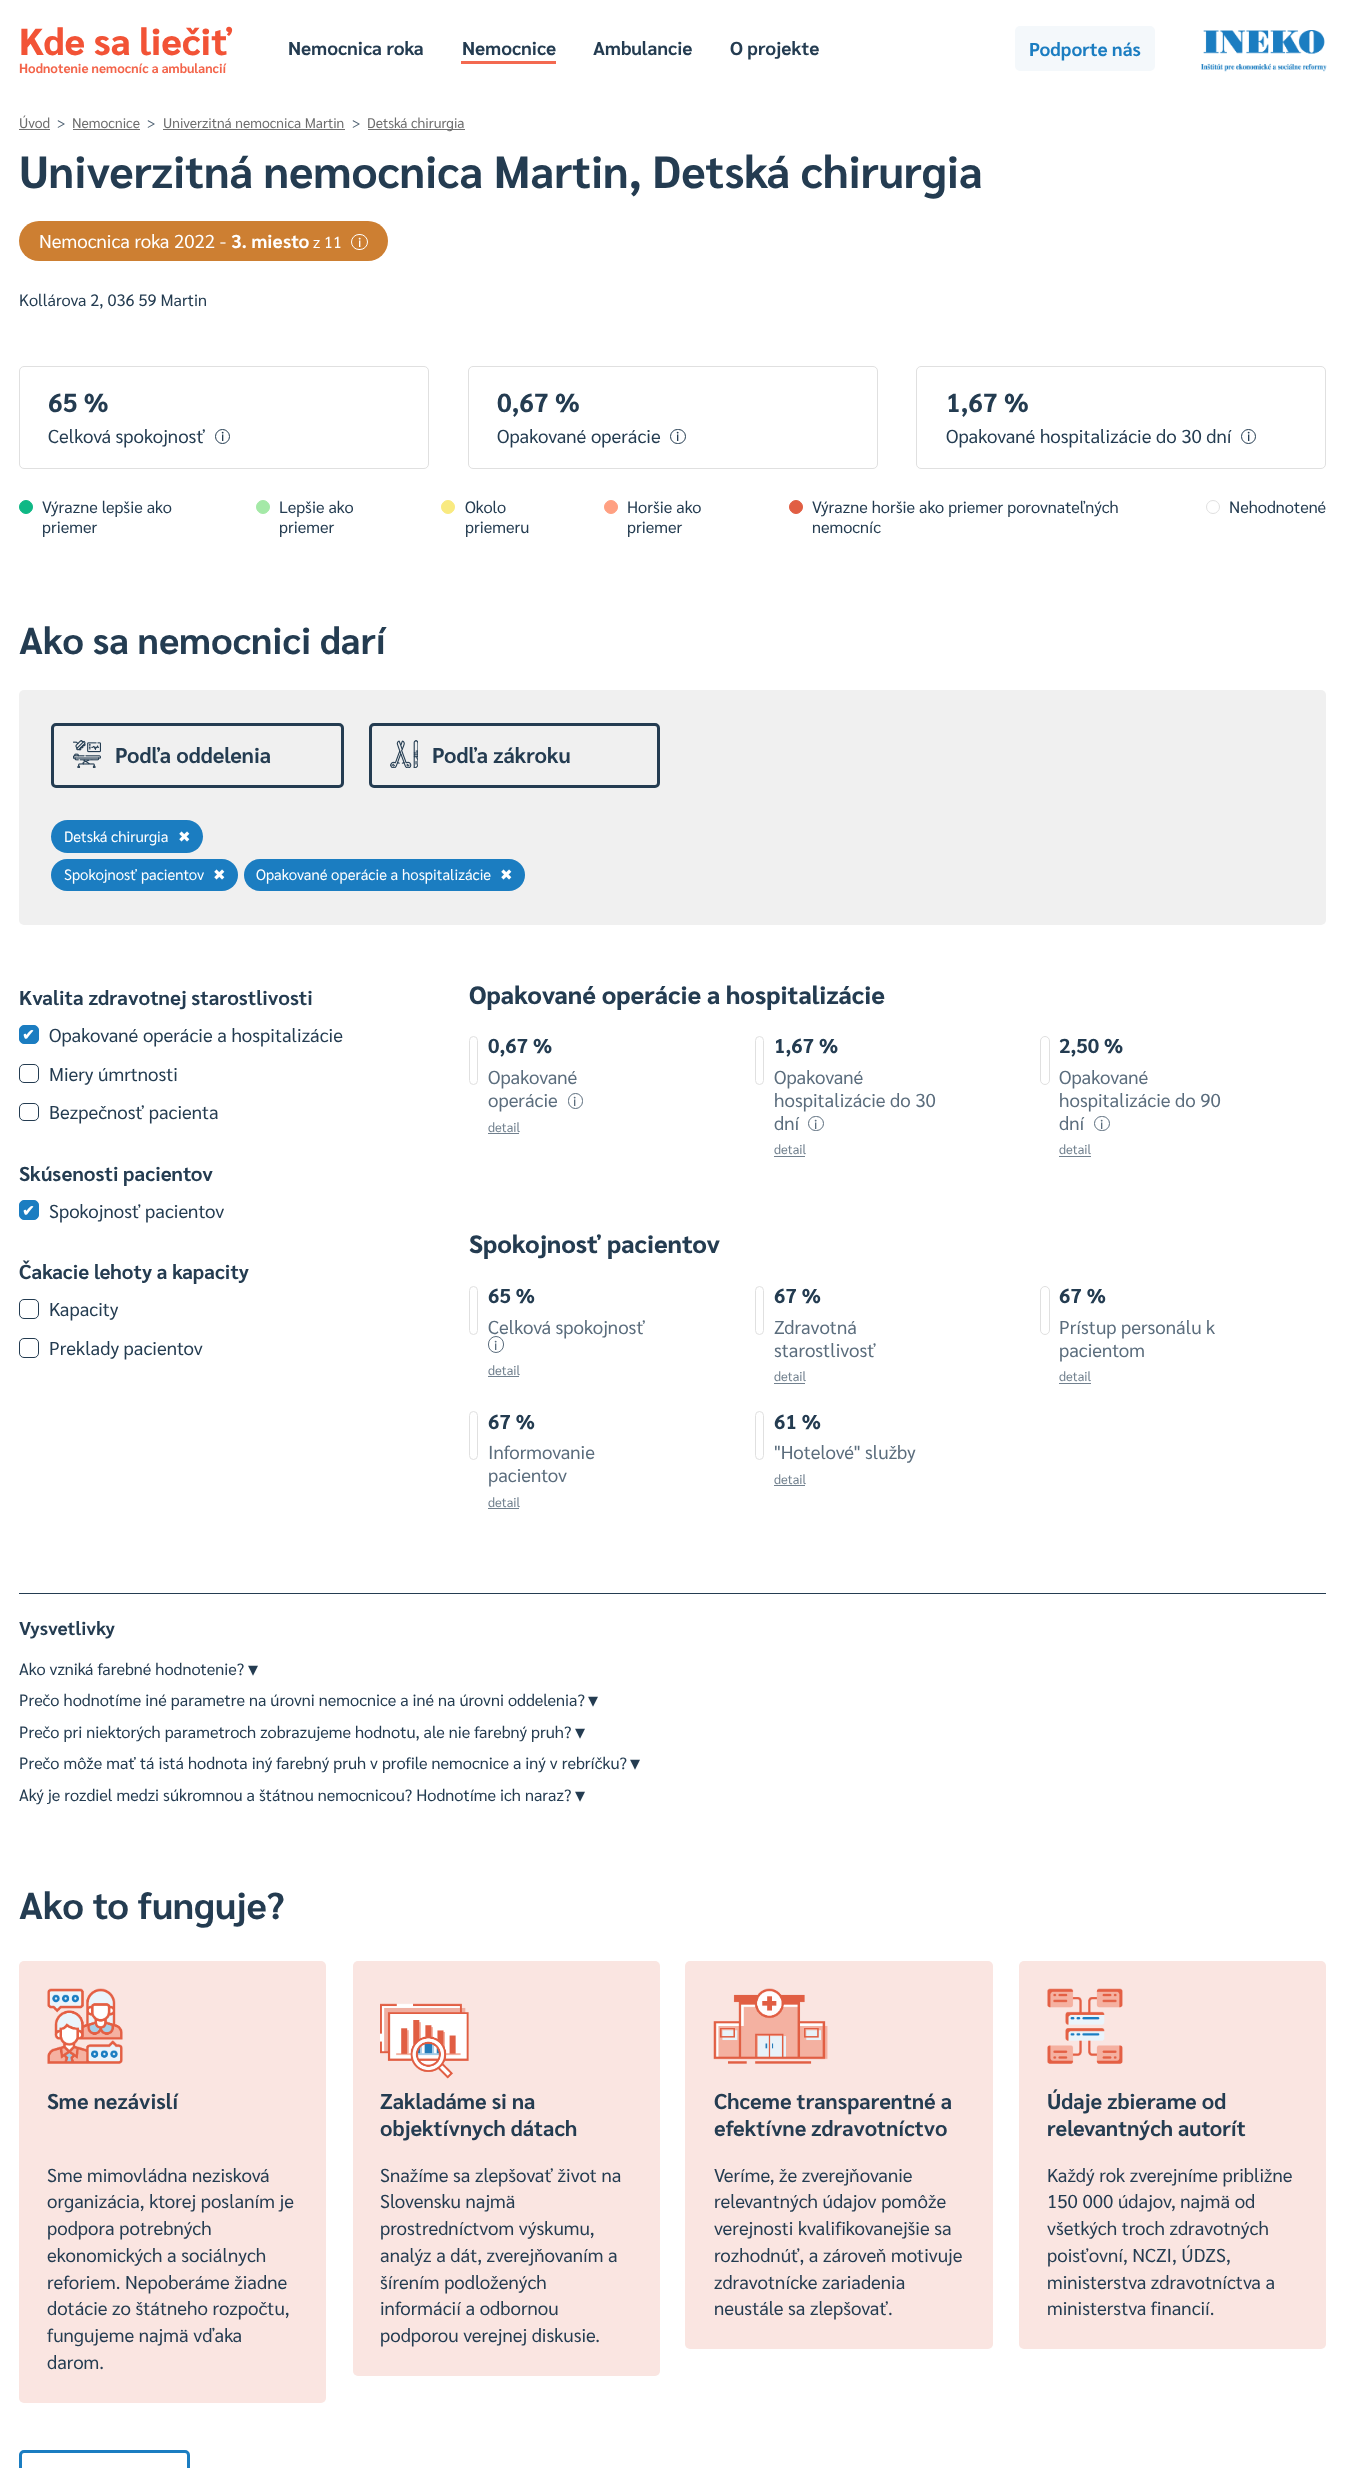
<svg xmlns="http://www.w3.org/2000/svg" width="1345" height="2468">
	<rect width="100%" height="100%" fill="#FFFFFF" />
	<text x="19" y="55" font-family="Sarabun" font-size="37.5" font-weight="800" fill="#F25336">Kde sa liečiť</text>
	<text x="19" y="73" font-family="Sarabun" font-size="13.1" font-weight="700" fill="#F3644A">Hodnotenie nemocníc a ambulancií</text>
	<text x="288" y="55" font-family="Sarabun" font-size="18.75" font-weight="700" fill="#243C51">Nemocnica roka</text>
	<rect x="461" y="61" width="95" height="3" fill="#F36950" />
	<g font-family="Sarabun" font-size="18.75" font-weight="700" fill="#243C51">
		<text x="462" y="55">Nemocnice</text>
		<text x="593" y="55">Ambulancie</text>
		<text x="730" y="55">O projekte</text>
	</g>
	<rect x="1015" y="26" width="140" height="45" rx="5" fill="#F4F8FB" />
	<text x="1029" y="56" font-family="Sarabun" font-size="18.75" font-weight="700" fill="#1B7DC1">Podporte nás</text>
	<image x="1201" y="30" width="126" height="42" href="assets/img1.png" />
	<text x="19" y="128" font-family="Sarabun" font-size="14" fill="#6E6E6E">Úvod</text>
	<rect x="19" y="129" width="31" height="1" fill="#6E6E6E" />
	<text x="57" y="128" font-family="Sarabun" font-size="14" fill="#506374">&gt;</text>
	<text x="72" y="128" font-family="Sarabun" font-size="14" fill="#6E6E6E">Nemocnice</text>
	<rect x="73" y="129" width="67" height="1" fill="#6E6E6E" />
	<text x="147" y="128" font-family="Sarabun" font-size="14" fill="#506374">&gt;</text>
	<text x="163" y="128" font-family="Sarabun" font-size="14" fill="#6E6E6E">Univerzitná nemocnica Martin</text>
	<rect x="163" y="129" width="182" height="1" fill="#6E6E6E" />
	<text x="352" y="128" font-family="Sarabun" font-size="14" fill="#506374">&gt;</text>
	<rect x="368" y="129" width="97" height="1" fill="#6E6E6E" />
	<text x="367" y="128" font-family="Sarabun" font-size="14" fill="#6E6E6E">Detská chirurgia</text>
	<text x="19" y="188" font-family="Sarabun" font-size="45" font-weight="700" fill="#243C51">Univerzitná nemocnica Martin, Detská chirurgia</text>
	<rect x="19" y="221" width="369" height="40" rx="20" fill="#CD7F32" />
	<text x="39" y="248" font-family="Sarabun" font-size="18.75" fill="#FFFFFF">Nemocnica roka 2022 -</text>
	<text x="231" y="248" font-family="Sarabun" font-size="18.75" font-weight="700" fill="#FFFFFF">3. miesto</text>
	<text x="313" y="248" font-family="Sarabun" font-size="16" fill="#FFFFFF">z 11</text>
	<rect x="351.5" y="234.5" width="16" height="15" rx="7.5" fill="none" stroke="#FFFFFF" />
	<text x="358" y="247" font-family="Sarabun" font-size="13.1" font-weight="500" fill="#FFFFFF">i</text>
	<text x="19" y="306" font-family="Sarabun" font-size="16.4" fill="#243C51">Kollárova 2, 036 59 Martin</text>
	<rect x="19.5" y="366.5" width="409" height="102" rx="4.5" fill="none" stroke="#E0E0E0" />
	<text x="48" y="412" font-family="Sarabun" font-size="26" font-weight="700" fill="#243C51">65 %</text>
	<text x="48" y="443" font-family="Sarabun" font-size="18.75" fill="#243C51">Celková spokojnosť</text>
	<circle cx="222.5" cy="436.5" r="7" fill="none" stroke="#243C51" />
	<text x="221" y="441" font-family="Sarabun" font-size="13.1" font-weight="500" fill="#243C51">i</text>
	<rect x="468.5" y="366.5" width="409" height="102" rx="4.5" fill="none" stroke="#E0E0E0" />
	<text x="497" y="412" font-family="Sarabun" font-size="26" font-weight="700" fill="#243C51">0,67 %</text>
	<text x="497" y="443" font-family="Sarabun" font-size="18.75" fill="#243C51">Opakované operácie</text>
	<rect x="670.5" y="429.5" width="15" height="14" rx="7" fill="none" stroke="#243C51" />
	<text x="676" y="441" font-family="Sarabun" font-size="13.1" font-weight="500" fill="#243C51">i</text>
	<rect x="916.5" y="366.5" width="409" height="102" rx="4.5" fill="none" stroke="#E0E0E0" />
	<text x="946" y="412" font-family="Sarabun" font-size="26" font-weight="700" fill="#243C51">1,67 %</text>
	<text x="946" y="443" font-family="Sarabun" font-size="18.75" fill="#243C51">Opakované hospitalizácie do 30 dní</text>
	<circle cx="1248.5" cy="436.5" r="7" fill="none" stroke="#243C51" />
	<text x="1247" y="441" font-family="Sarabun" font-size="13.1" font-weight="500" fill="#243C51">i</text>
	<circle cx="26" cy="507" r="6.5" fill="#0FB885" stroke="#0FB885" />
	<g font-family="Sarabun" font-size="16.4" fill="#243C51">
		<text x="42" y="513">Výrazne lepšie ako</text>
		<text x="42" y="533">priemer</text>
	</g>
	<circle cx="263" cy="507" r="6.5" fill="#A4E9A7" stroke="#A4E9A7" />
	<g font-family="Sarabun" font-size="16.4" fill="#243C51">
		<text x="279" y="513">Lepšie ako</text>
		<text x="279" y="533">priemer</text>
	</g>
	<circle cx="448" cy="507" r="6.5" fill="#F9EA80" stroke="#F9EA80" />
	<g font-family="Sarabun" font-size="16.4" fill="#243C51">
		<text x="465" y="513">Okolo</text>
		<text x="465" y="533">priemeru</text>
	</g>
	<circle cx="611" cy="507" r="6.5" fill="#FFA082" stroke="#FFA082" />
	<g font-family="Sarabun" font-size="16.4" fill="#243C51">
		<text x="627" y="513">Horšie ako</text>
		<text x="627" y="533">priemer</text>
	</g>
	<circle cx="796" cy="507" r="6.5" fill="#E15E43" stroke="#E15E43" />
	<g font-family="Sarabun" font-size="16.4" fill="#243C51">
		<text x="812" y="513">Výrazne horšie ako priemer porovnateľných</text>
		<text x="812" y="533">nemocníc</text>
	</g>
	<circle cx="1213" cy="507" r="6.5" fill="none" stroke="#E0E0E0" />
	<text x="1229" y="513" font-family="Sarabun" font-size="16.4" fill="#243C51">Nehodnotené</text>
	<text x="19" y="654" font-family="Sarabun" font-size="37.5" font-weight="700" fill="#243C51">Ako sa nemocnici darí</text>
	<rect x="19" y="690" width="1307" height="235" rx="5" fill="#F0F0F0" />
	<rect x="52.5" y="724.5" width="290" height="62" rx="3.5" fill="none" stroke="#243C51" stroke-width="3" />
	<image x="73" y="740" width="28" height="28" href="assets/img2.png" />
	<text x="115" y="763" font-family="Sarabun" font-size="21.5" font-weight="700" fill="#243C51">Podľa oddelenia</text>
	<rect x="370.5" y="724.5" width="288" height="62" rx="3.5" fill="none" stroke="#243C51" stroke-width="3" />
	<image x="390" y="740" width="28" height="28" href="assets/img3.png" />
	<text x="432" y="763" font-family="Sarabun" font-size="21.5" font-weight="700" fill="#243C51">Podľa zákroku</text>
	<rect x="51" y="820" width="152" height="33" rx="16.5" fill="#1B7DC1" />
	<text x="64" y="842" font-family="Sarabun" font-size="15" fill="#FFFFFF">Detská chirurgia</text>
	<text x="178" y="842" font-family="DejaVu Sans" font-size="15" fill="#FFFFFF">✖</text>
	<rect x="51" y="859" width="187" height="32" rx="16" fill="#1B7DC1" />
	<text x="64" y="880" font-family="Sarabun" font-size="15" fill="#FFFFFF">Spokojnosť pacientov</text>
	<text x="213" y="880" font-family="DejaVu Sans" font-size="15" fill="#FFFFFF">✖</text>
	<rect x="244" y="859" width="281" height="32" rx="16" fill="#1B7DC1" />
	<text x="256" y="880" font-family="Sarabun" font-size="15" fill="#FFFFFF">Opakované operácie a hospitalizácie</text>
	<text x="500" y="880" font-family="DejaVu Sans" font-size="15" fill="#FFFFFF">✖</text>
	<text x="19" y="1005" font-family="Sarabun" font-size="20.2" font-weight="700" fill="#243C51">Kvalita zdravotnej starostlivosti</text>
	<rect x="19.5" y="1025.5" width="19" height="18" rx="4.5" fill="#1B7DC1" stroke="#1B7DC1" />
	<text x="22" y="1040" font-family="DejaVu Sans" font-size="15" font-weight="700" fill="#FFFFFF">✔</text>
	<text x="49" y="1042" font-family="Sarabun" font-size="18.75" fill="#243C51">Opakované operácie a hospitalizácie</text>
	<rect x="19.5" y="1064.5" width="19" height="18" rx="4.5" fill="none" stroke="#243C51" />
	<text x="49" y="1081" font-family="Sarabun" font-size="18.75" fill="#243C51">Miery úmrtnosti</text>
	<rect x="19.5" y="1103.5" width="19" height="17" rx="4.5" fill="none" stroke="#243C51" />
	<text x="49" y="1119" font-family="Sarabun" font-size="18.75" fill="#243C51">Bezpečnosť pacienta</text>
	<text x="19" y="1181" font-family="Sarabun" font-size="20.2" font-weight="700" fill="#243C51">Skúsenosti pacientov</text>
	<rect x="19.5" y="1200.5" width="19" height="19" rx="4.5" fill="#1B7DC1" stroke="#1B7DC1" />
	<text x="22" y="1216" font-family="DejaVu Sans" font-size="15" font-weight="700" fill="#FFFFFF">✔</text>
	<text x="49" y="1218" font-family="Sarabun" font-size="18.75" fill="#243C51">Spokojnosť pacientov</text>
	<text x="19" y="1279" font-family="Sarabun" font-size="20.2" font-weight="700" fill="#243C51">Čakacie lehoty a kapacity</text>
	<rect x="19.5" y="1299.5" width="19" height="19" rx="4.5" fill="none" stroke="#243C51" />
	<text x="49" y="1316" font-family="Sarabun" font-size="18.75" fill="#243C51">Kapacity</text>
	<rect x="19.5" y="1338.5" width="19" height="19" rx="4.5" fill="none" stroke="#243C51" />
	<text x="49" y="1355" font-family="Sarabun" font-size="18.75" fill="#243C51">Preklady pacientov</text>
	<text x="469" y="1004" font-family="Sarabun" font-size="25" font-weight="800" fill="#243C51">Opakované operácie a hospitalizácie</text>
	<rect x="469.5" y="1036.5" width="8" height="48" rx="4" fill="none" stroke="#E0E0E0" />
	<text x="488" y="1053" font-family="Sarabun" font-size="20.2" font-weight="700" fill="#243C51">0,67 %</text>
	<g font-family="Sarabun" font-size="18.75" fill="#5B6D7D">
		<text x="488" y="1084">Opakované</text>
		<text x="488" y="1107">operácie</text>
	</g>
	<rect x="568.5" y="1093.5" width="14" height="15" rx="7" fill="none" stroke="#5B6D7D" />
	<text x="573" y="1106" font-family="Sarabun" font-size="13.1" font-weight="500" fill="#5B6D7D">i</text>
	<text x="488" y="1132" font-family="Sarabun" font-size="13" fill="#71808E">detail</text>
	<rect x="488" y="1133" width="31" height="1" fill="#71808E" />
	<rect x="755.5" y="1036.5" width="8" height="48" rx="4" fill="none" stroke="#E0E0E0" />
	<text x="774" y="1053" font-family="Sarabun" font-size="20.2" font-weight="700" fill="#243C51">1,67 %</text>
	<g font-family="Sarabun" font-size="18.75" fill="#5B6D7D">
		<text x="774" y="1084">Opakované</text>
		<text x="774" y="1107">hospitalizácie do 30</text>
		<text x="774" y="1130">dní</text>
	</g>
	<rect x="808.5" y="1116.5" width="15" height="14" rx="7" fill="none" stroke="#5B6D7D" />
	<text x="814" y="1129" font-family="Sarabun" font-size="13.1" font-weight="500" fill="#5B6D7D">i</text>
	<text x="774" y="1154" font-family="Sarabun" font-size="13" fill="#71808E">detail</text>
	<rect x="774" y="1156" width="31" height="1" fill="#71808E" />
	<rect x="1040.5" y="1036.5" width="9" height="48" rx="4.5" fill="none" stroke="#E0E0E0" />
	<text x="1059" y="1053" font-family="Sarabun" font-size="20.2" font-weight="700" fill="#243C51">2,50 %</text>
	<g font-family="Sarabun" font-size="18.75" fill="#5B6D7D">
		<text x="1059" y="1084">Opakované</text>
		<text x="1059" y="1107">hospitalizácie do 90</text>
		<text x="1059" y="1130">dní</text>
	</g>
	<rect x="1094.5" y="1116.5" width="15" height="14" rx="7" fill="none" stroke="#5B6D7D" />
	<text x="1100" y="1129" font-family="Sarabun" font-size="13.1" font-weight="500" fill="#5B6D7D">i</text>
	<text x="1059" y="1154" font-family="Sarabun" font-size="13" fill="#71808E">detail</text>
	<rect x="1059" y="1156" width="32" height="1" fill="#71808E" />
	<text x="469" y="1253" font-family="Sarabun" font-size="25" font-weight="800" fill="#243C51">Spokojnosť pacientov</text>
	<rect x="469.5" y="1286.5" width="8" height="48" rx="4" fill="none" stroke="#E0E0E0" />
	<text x="488" y="1303" font-family="Sarabun" font-size="20.2" font-weight="700" fill="#243C51">65 %</text>
	<text x="488" y="1334" font-family="Sarabun" font-size="18.75" fill="#5B6D7D">Celková spokojnosť</text>
	<rect x="488.5" y="1336.5" width="15" height="16" rx="7.5" fill="none" stroke="#5B6D7D" />
	<text x="494" y="1350" font-family="Sarabun" font-size="13.1" font-weight="500" fill="#5B6D7D">i</text>
	<text x="488" y="1375" font-family="Sarabun" font-size="13" fill="#71808E">detail</text>
	<rect x="488" y="1376" width="31" height="1" fill="#71808E" />
	<rect x="755.5" y="1286.5" width="8" height="48" rx="4" fill="none" stroke="#E0E0E0" />
	<text x="774" y="1303" font-family="Sarabun" font-size="20.2" font-weight="700" fill="#243C51">67 %</text>
	<g font-family="Sarabun" font-size="18.75" fill="#5B6D7D">
		<text x="774" y="1334">Zdravotná</text>
		<text x="774" y="1357">starostlivosť</text>
	</g>
	<text x="774" y="1381" font-family="Sarabun" font-size="13" fill="#71808E">detail</text>
	<rect x="774" y="1383" width="31" height="1" fill="#71808E" />
	<rect x="1040.5" y="1286.5" width="9" height="48" rx="4.5" fill="none" stroke="#E0E0E0" />
	<text x="1059" y="1303" font-family="Sarabun" font-size="20.2" font-weight="700" fill="#243C51">67 %</text>
	<g font-family="Sarabun" font-size="18.75" fill="#5B6D7D">
		<text x="1059" y="1334">Prístup personálu k</text>
		<text x="1059" y="1357">pacientom</text>
	</g>
	<text x="1059" y="1381" font-family="Sarabun" font-size="13" fill="#71808E">detail</text>
	<rect x="1059" y="1383" width="32" height="1" fill="#71808E" />
	<rect x="469.5" y="1411.5" width="8" height="48" rx="4" fill="none" stroke="#E0E0E0" />
	<text x="488" y="1429" font-family="Sarabun" font-size="20.2" font-weight="700" fill="#243C51">67 %</text>
	<g font-family="Sarabun" font-size="18.75" fill="#5B6D7D">
		<text x="488" y="1459">Informovanie</text>
		<text x="488" y="1482">pacientov</text>
	</g>
	<text x="488" y="1507" font-family="Sarabun" font-size="13" fill="#71808E">detail</text>
	<rect x="488" y="1508" width="31" height="1" fill="#71808E" />
	<rect x="755.5" y="1411.5" width="8" height="48" rx="4" fill="none" stroke="#E0E0E0" />
	<text x="774" y="1429" font-family="Sarabun" font-size="20.2" font-weight="700" fill="#243C51">61 %</text>
	<text x="774" y="1459" font-family="Sarabun" font-size="18.75" fill="#5B6D7D">"Hotelové" služby</text>
	<text x="774" y="1484" font-family="Sarabun" font-size="13" fill="#71808E">detail</text>
	<rect x="774" y="1485" width="31" height="1" fill="#71808E" />
	<rect x="19" y="1593" width="1307" height="1" fill="#243C51" />
	<text x="19" y="1635" font-family="Sarabun" font-size="18.75" font-weight="700" fill="#243C51">Vysvetlivky</text>
	<text x="19" y="1675" font-family="Sarabun" font-size="16.4" fill="#243C51">Ako vzniká farebné hodnotenie?</text>
	<text x="248" y="1676" font-family="DejaVu Sans" font-size="20" fill="#243C51">▾</text>
	<text x="19" y="1706" font-family="Sarabun" font-size="16.4" fill="#243C51">Prečo hodnotíme iné parametre na úrovni nemocnice a iné na úrovni oddelenia?</text>
	<text x="588" y="1707" font-family="DejaVu Sans" font-size="20" fill="#243C51">▾</text>
	<text x="19" y="1738" font-family="Sarabun" font-size="16.4" fill="#243C51">Prečo pri niektorých parametroch zobrazujeme hodnotu, ale nie farebný pruh?</text>
	<text x="575" y="1739" font-family="DejaVu Sans" font-size="20" fill="#243C51">▾</text>
	<text x="19" y="1769" font-family="Sarabun" font-size="16.4" fill="#243C51">Prečo môže mať tá istá hodnota iný farebný pruh v profile nemocnice a iný v rebríčku?</text>
	<text x="630" y="1770" font-family="DejaVu Sans" font-size="20" fill="#243C51">▾</text>
	<text x="19" y="1801" font-family="Sarabun" font-size="16.4" fill="#243C51">Aký je rozdiel medzi súkromnou a štátnou nemocnicou? Hodnotíme ich naraz?</text>
	<text x="575" y="1802" font-family="DejaVu Sans" font-size="20" fill="#243C51">▾</text>
	<text x="19" y="1919" font-family="Sarabun" font-size="37.5" font-weight="700" fill="#243C51">Ako to funguje?</text>
	<rect x="19" y="1961" width="307" height="442" rx="5" fill="#FAE5E1" />
	<image x="47" y="1988" width="76" height="76" href="assets/img4.png" />
	<text x="47" y="2109" font-family="Sarabun" font-size="21.5" font-weight="700" fill="#243C51">Sme nezávislí</text>
	<g font-family="Sarabun" font-size="18.75" fill="#243C51">
		<text x="47" y="2182">Sme mimovládna nezisková</text>
		<text x="47" y="2208">organizácia, ktorej poslaním je</text>
		<text x="47" y="2235">podpora potrebných</text>
		<text x="47" y="2262">ekonomických a sociálnych</text>
		<text x="47" y="2289">reforiem. Nepoberáme žiadne</text>
		<text x="47" y="2315">dotácie zo štátneho rozpočtu,</text>
		<text x="47" y="2342">fungujeme najmä vďaka</text>
		<text x="47" y="2369">darom.</text>
	</g>
	<rect x="353" y="1961" width="307" height="415" rx="5" fill="#FAE5E1" />
	<image x="380" y="2003" width="89" height="76" href="assets/img5.png" />
	<g font-family="Sarabun" font-size="21.5" font-weight="700" fill="#243C51">
		<text x="380" y="2109">Zakladáme si na</text>
		<text x="380" y="2136">objektívnych dátach</text>
	</g>
	<g font-family="Sarabun" font-size="18.75" fill="#243C51">
		<text x="380" y="2182">Snažíme sa zlepšovať život na</text>
		<text x="380" y="2208">Slovensku najmä</text>
		<text x="380" y="2235">prostredníctvom výskumu,</text>
		<text x="380" y="2262">analýz a dát, zverejňovaním a</text>
		<text x="380" y="2289">šírením podložených</text>
		<text x="380" y="2315">informácií a odbornou</text>
		<text x="380" y="2342">podporou verejnej diskusie.</text>
	</g>
	<rect x="685" y="1961" width="308" height="388" rx="5" fill="#FAE5E1" />
	<image x="713" y="1988" width="115" height="76" href="assets/img6.png" />
	<g font-family="Sarabun" font-size="21.5" font-weight="700" fill="#243C51">
		<text x="714" y="2109">Chceme transparentné a</text>
		<text x="714" y="2136">efektívne zdravotníctvo</text>
	</g>
	<g font-family="Sarabun" font-size="18.75" fill="#243C51">
		<text x="714" y="2182">Veríme, že zverejňovanie</text>
		<text x="714" y="2208">relevantných údajov pomôže</text>
		<text x="714" y="2235">verejnosti kvalifikovanejšie sa</text>
		<text x="714" y="2262">rozhodnúť, a zároveň motivuje</text>
		<text x="714" y="2289">zdravotnícke zariadenia</text>
		<text x="714" y="2315">neustále sa zlepšovať.</text>
	</g>
	<rect x="1019" y="1961" width="307" height="388" rx="5" fill="#FAE5E1" />
	<image x="1047" y="1988" width="76" height="76" href="assets/img7.png" />
	<g font-family="Sarabun" font-size="21.5" font-weight="700" fill="#243C51">
		<text x="1047" y="2109">Údaje zbierame od</text>
		<text x="1047" y="2136">relevantných autorít</text>
	</g>
	<g font-family="Sarabun" font-size="18.75" fill="#243C51">
		<text x="1047" y="2182">Každý rok zverejníme približne</text>
		<text x="1047" y="2208">150 000 údajov, najmä od</text>
		<text x="1047" y="2235">všetkých troch zdravotných</text>
		<text x="1047" y="2262">poisťovní, NCZI, ÚDZS,</text>
		<text x="1047" y="2289">ministerstva zdravotníctva a</text>
		<text x="1047" y="2315">ministerstva financií.</text>
	</g>
	<rect x="20.5" y="2451.5" width="168" height="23" rx="3.5" fill="none" stroke="#1B7DC1" stroke-width="3" />
</svg>
